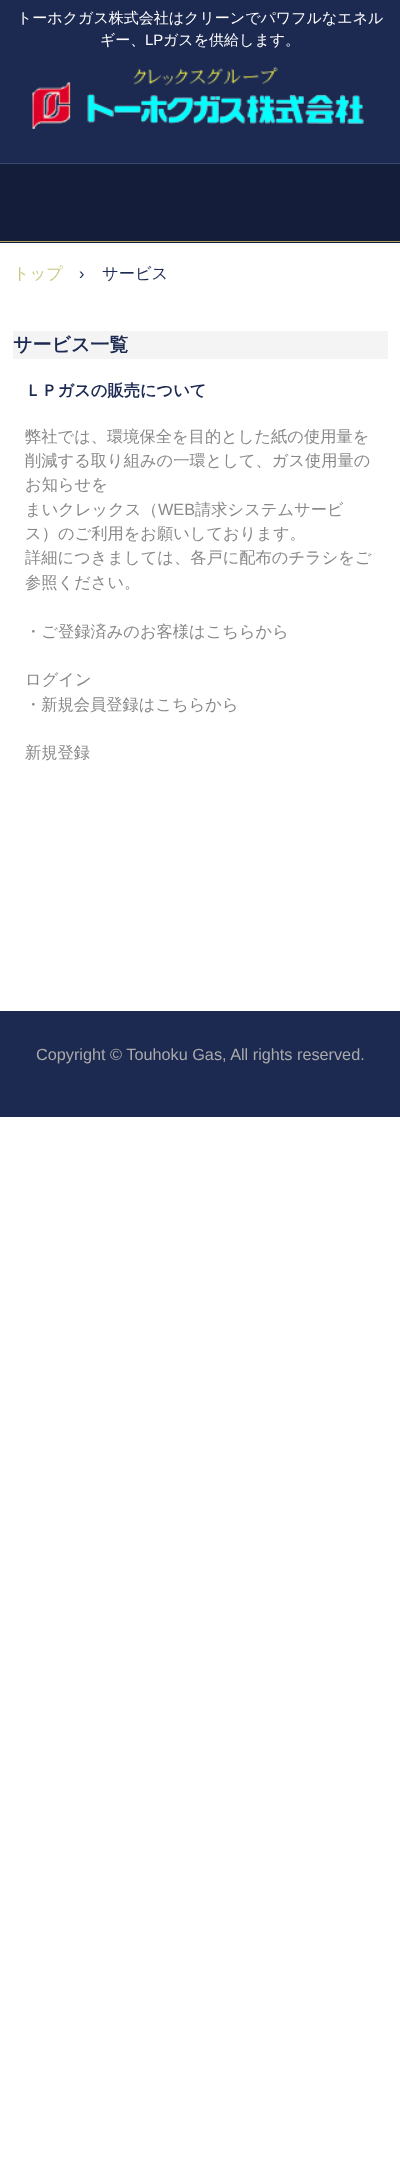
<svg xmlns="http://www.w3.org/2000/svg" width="400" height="2164">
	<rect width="100%" height="100%" fill="#FFFFFF" />
	<rect x="0" y="0" width="400" height="163" fill="#1C2950" />
	<rect x="0" y="163" width="400" height="1" fill="#374874" />
	<g font-family="WenQuanYi Zen Hei" font-size="15" font-weight="500" fill="#FFFFFF">
		<text x="17" y="23">トーホクガス株式会社はクリーンでパワフルなエネル</text>
		<text x="100" y="45">ギー、</text>
	</g>
	<text x="145" y="45" font-family="Liberation Sans" font-size="15" fill="#FFFFFF">LP</text>
	<text x="163" y="45" font-family="WenQuanYi Zen Hei" font-size="15" font-weight="500" fill="#FFFFFF">ガスを供給します。</text>
	<image x="32" y="67" width="332" height="62" href="assets/img1.png" />
	<rect x="0" y="164" width="400" height="79" fill="#141E3A" />
	<rect x="0" y="241" width="400" height="1" fill="#B29F5C" />
	<text x="13" y="279" font-family="WenQuanYi Zen Hei" font-size="16.25" font-weight="500" fill="#C9C67D">トップ</text>
	<text x="79" y="279" font-family="Liberation Sans" font-size="16.25" fill="#1C2A51">›</text>
	<text x="102" y="279" font-family="WenQuanYi Zen Hei" font-size="16.25" font-weight="500" fill="#1C2A51">サービス</text>
	<rect x="13" y="331" width="375" height="28" fill="#F4F4F4" />
	<text x="13" y="351" font-family="WenQuanYi Zen Hei" font-size="19" font-weight="700" fill="#1C2A51">サービス一覧</text>
	<text x="25" y="396" font-family="WenQuanYi Zen Hei" font-size="16.25" font-weight="700" fill="#1C2A51">ＬＰガスの販売について</text>
	<g font-family="WenQuanYi Zen Hei" font-size="16.25" font-weight="500" fill="#888888">
		<text x="25" y="442">弊社では、環境保全を目的とした紙の使用量を</text>
		<text x="25" y="466">削減する取り組みの一環として、ガス使用量の</text>
		<text x="25" y="490">お知らせを</text>
		<text x="25" y="515">まいクレックス（</text>
	</g>
	<text x="158" y="515" font-family="Liberation Sans" font-size="16.25" fill="#888888">WEB</text>
	<g font-family="WenQuanYi Zen Hei" font-size="16.25" font-weight="500" fill="#888888">
		<text x="195" y="515">請求システムサービ</text>
		<text x="25" y="539">ス）のご利用をお願いしております。</text>
		<text x="25" y="563">詳細につきましては、各戸に配布のチラシをご</text>
		<text x="25" y="588">参照ください。</text>
		<text x="25" y="637">・ご登録済みのお客様はこちらから</text>
		<text x="25" y="685">ログイン</text>
		<text x="25" y="710">・新規会員登録はこちらから</text>
		<text x="25" y="758">新規登録</text>
	</g>
	<rect x="0" y="1011" width="400" height="106" fill="#1C2950" />
	<text x="36" y="1060" font-family="Liberation Sans" font-size="16.25" fill="#AAAAAA">Copyright © Touhoku Gas, All rights reserved.</text>
</svg>
